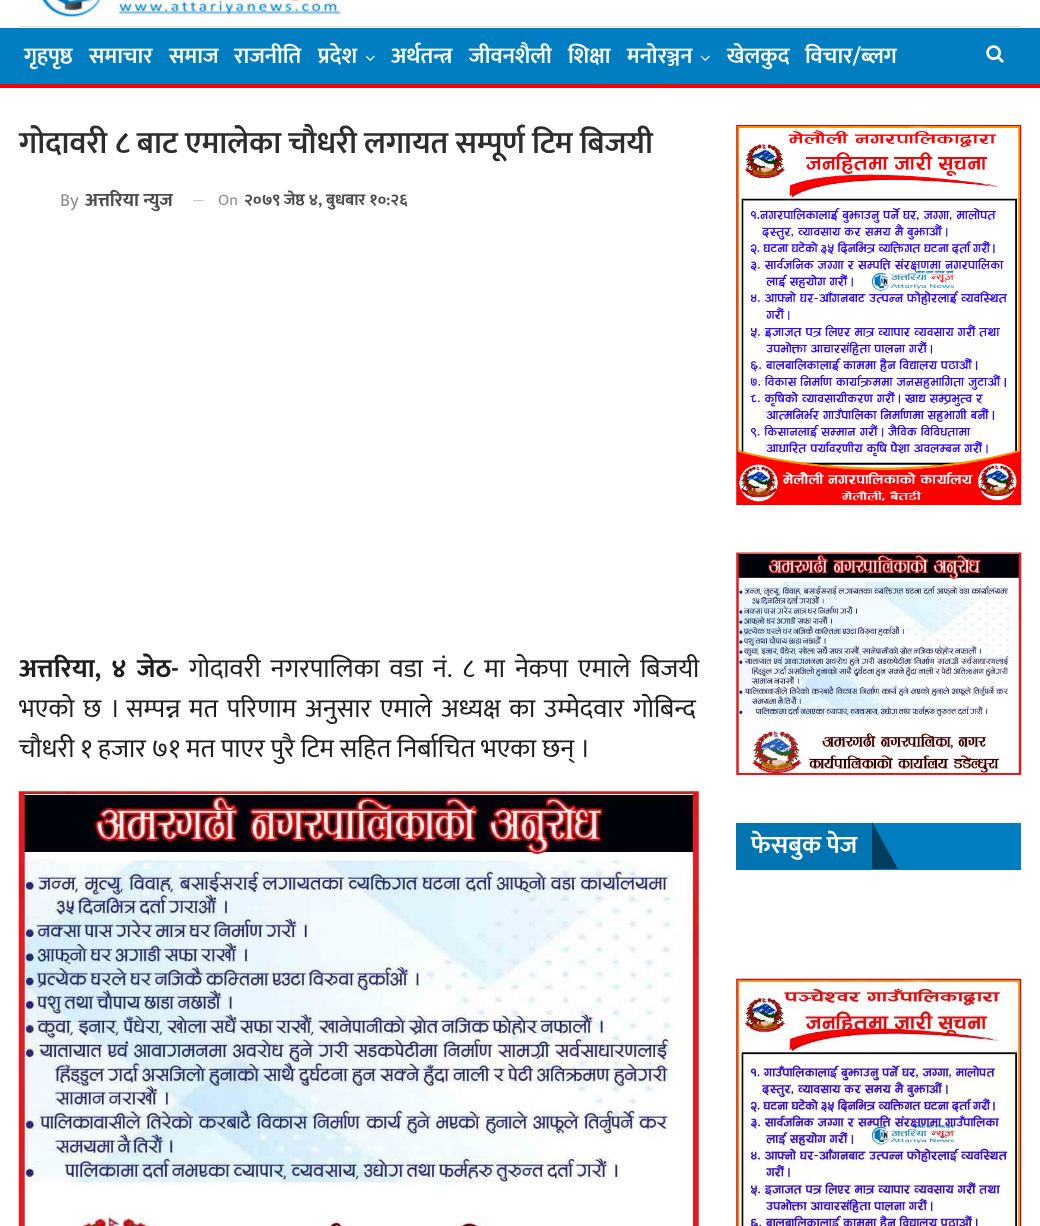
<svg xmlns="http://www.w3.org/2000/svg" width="1040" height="1226">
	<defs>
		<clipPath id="clip1"><rect x="19" y="3" width="952" height="85" /></clipPath>
	</defs>
	<rect width="100%" height="100%" fill="#FFFFFF" />
	<rect x="19" y="26" width="1002" height="1" fill="#DDDDDD" />
	<image x="37" y="0" width="305" height="20" href="assets/img1.png" />
	<rect x="0" y="28" width="1040" height="56" fill="#017EC1" />
	<rect x="0" y="84" width="1040" height="4" fill="#F40303" />
	<g clip-path="url(#clip1)">
		<text x="24" y="63" font-family="Mukta" font-size="22.5" font-weight="600" fill="#FFFFFF">गृहपृष्ठ</text>
	</g>
	<g font-family="Mukta" font-size="22.5" font-weight="600" fill="#FFFFFF">
		<text x="89" y="63">समाचार</text>
		<text x="169" y="63">समाज</text>
		<text x="234" y="63">राजनीति</text>
		<text x="318" y="63">प्रदेश</text>
	</g>
	<image x="365" y="55" width="10" height="6" href="assets/img2.png" />
	<g font-family="Mukta" font-size="22.5" font-weight="600" fill="#FFFFFF">
		<text x="391" y="63">अर्थतन्त्र</text>
		<text x="469" y="63">जीवनशैली</text>
		<text x="568" y="63">शिक्षा</text>
		<text x="627" y="63">मनाेरञ्जन</text>
	</g>
	<image x="700" y="55" width="10" height="6" href="assets/img2.png" />
	<g font-family="Mukta" font-size="22.5" font-weight="600" fill="#FFFFFF">
		<text x="727" y="63">खेलकुद</text>
		<text x="805" y="63">विचार/ब्लग</text>
	</g>
	<image x="986" y="45" width="18" height="18" href="assets/img3.png" />
	<text x="19" y="153" font-family="Mukta" font-size="31.25" font-weight="600" fill="#2D2D2D">गोदावरी ८ बाट एमालेका चौधरी लगायत सम्पूर्ण टिम बिजयी</text>
	<text x="60" y="206" font-family="Mukta" font-size="18.75" fill="#8F8F8F">By</text>
	<text x="85" y="206" font-family="Mukta" font-size="18.75" font-weight="700" fill="#4D4D4D">अत्तरिया न्युज</text>
	<rect x="193" y="200" width="11" height="1" fill="#C4C4C4" />
	<text x="218" y="205" font-family="Mukta" font-size="16.25" fill="#8F8F8F">On</text>
	<text x="244" y="205" font-family="Mukta" font-size="16.25" font-weight="700" fill="#4D4D4D">२०७९ जेष्ठ ४, बुधबार १०:२६</text>
	<text x="19" y="677" word-spacing="4" font-family="Mukta" font-size="26.25" font-weight="700" fill="#1E1E1E">अत्तरिया, ४ जेठ-</text>
	<g font-family="Mukta" font-size="26.25" fill="#1E1E1E">
		<text x="189" y="677" word-spacing="4">गोदावरी नगरपालिका वडा नं. ८ मा नेकपा एमाले बिजयी</text>
		<text x="19" y="717" word-spacing="2.9">भएको छ । सम्पन्न मत परिणाम अनुसार एमाले अध्यक्ष का उम्मेदवार गोबिन्द</text>
		<text x="19" y="757">चौधरी १ हजार ७१ मत पाएर पुरै टिम सहित निर्बाचित भएका छन् ।</text>
	</g>
	<image x="18" y="791" width="681" height="435" href="assets/img4.png" />
	<image x="736" y="125" width="286" height="380" href="assets/img5.png" />
	<image x="736" y="552" width="286" height="223" href="assets/img6.png" />
	<rect x="873" y="823" width="148" height="47" fill="#017EC1" />
	<rect x="736" y="823" width="137" height="47" fill="#0174B2" />
	<text x="751" y="853" font-family="Mukta" font-size="25" font-weight="600" fill="#FFFFFF">फेसबुक पेज</text>
	<path d="M898 869H872V822Z" fill="#023D5D" />
	<image x="736" y="978" width="286" height="248" href="assets/img7.png" />
</svg>
